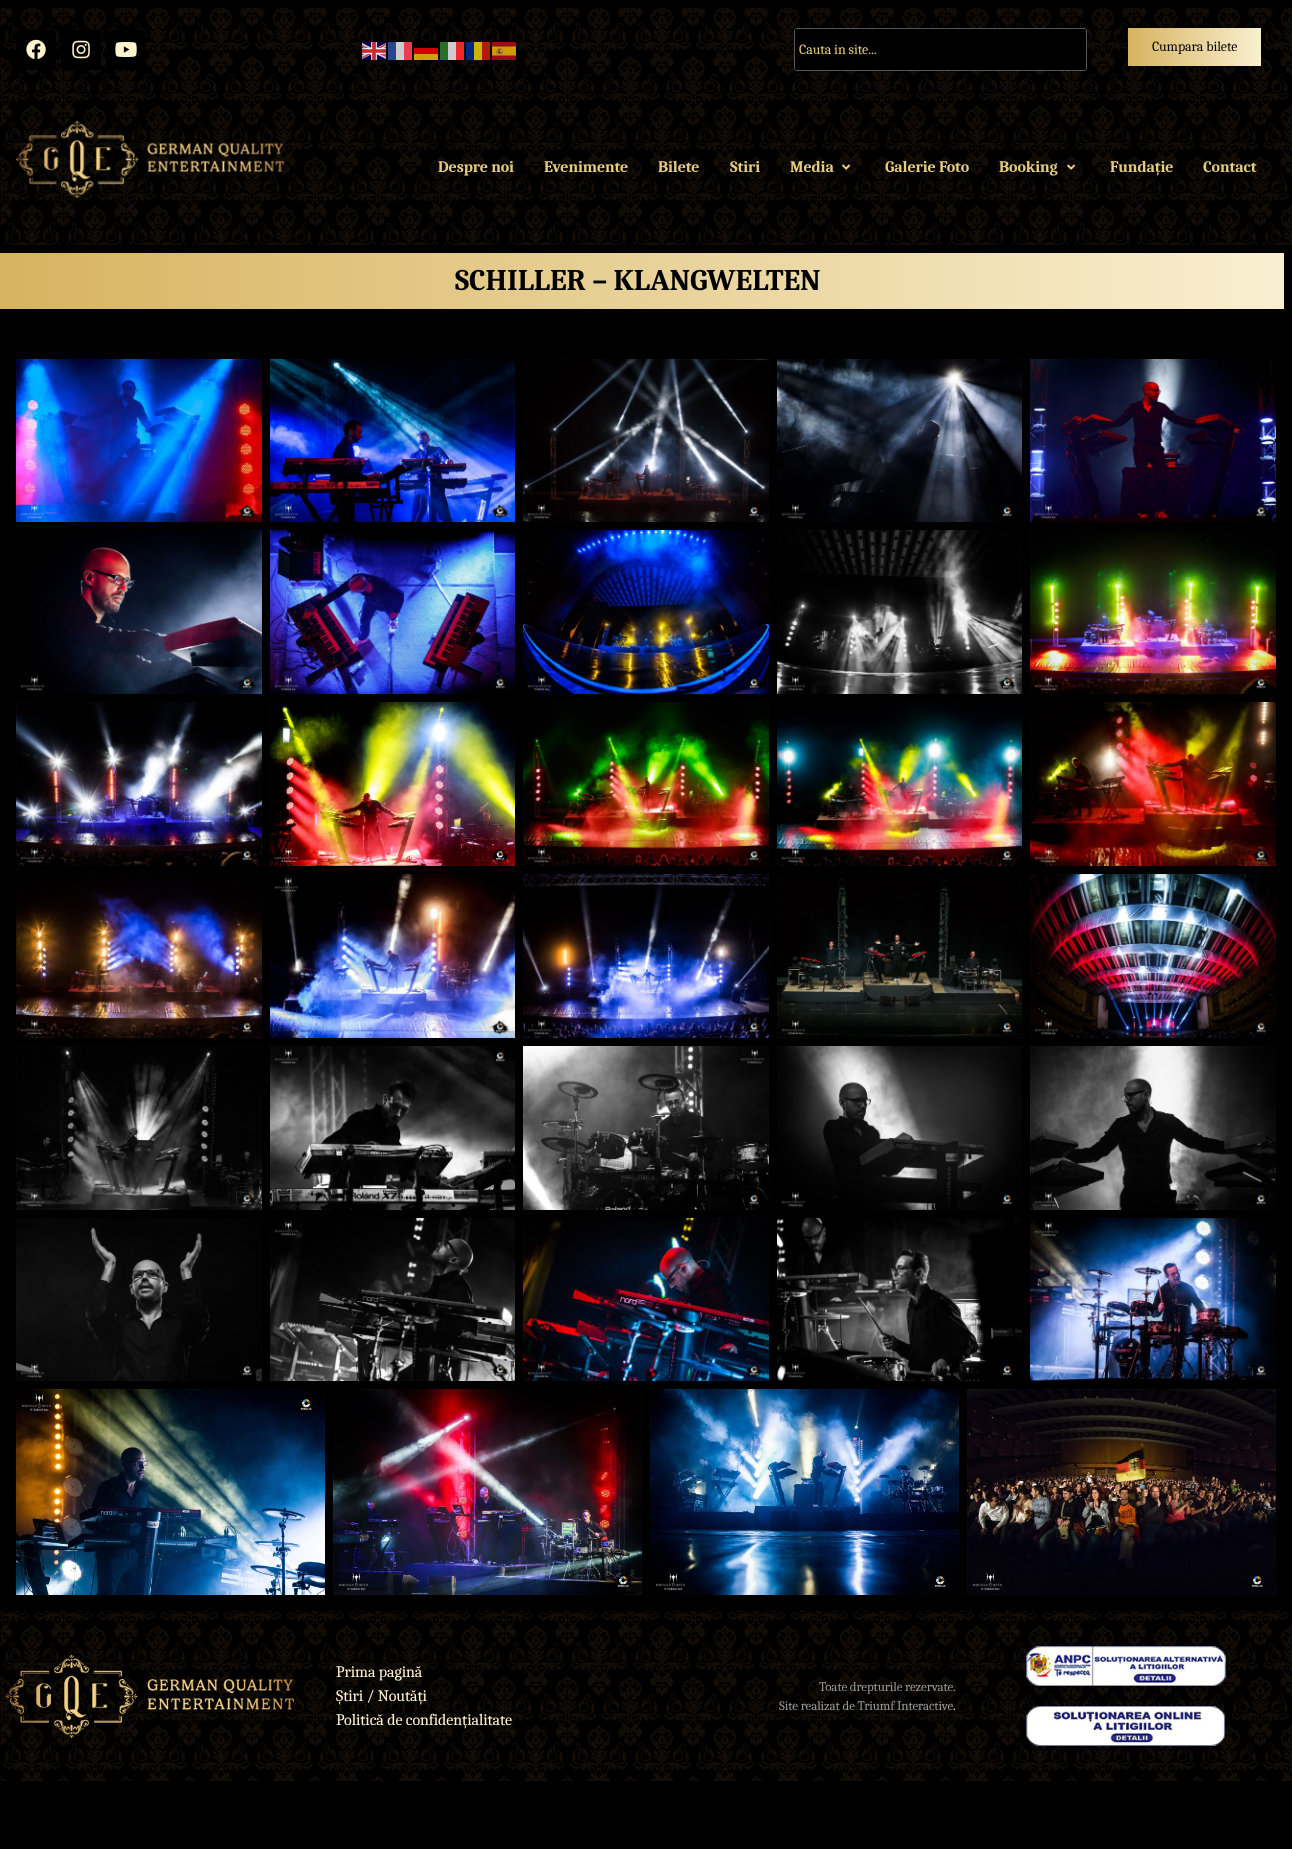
<svg xmlns="http://www.w3.org/2000/svg" width="1292" height="1849">
	<defs>
		<linearGradient id="g1" gradientUnits="userSpaceOnUse" x1="1128" y1="47" x2="1261" y2="47"><stop offset="0" stop-color="#D7B35F" /><stop offset="1" stop-color="#F9EFD0" /></linearGradient>
		<linearGradient id="g2" gradientUnits="userSpaceOnUse" x1="-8" y1="281" x2="1284" y2="281"><stop offset="0" stop-color="#D7B35F" /><stop offset="1" stop-color="#F9EFD0" /></linearGradient>
	</defs>
	<rect width="100%" height="100%" fill="#000000" />
	<image x="0" y="8" width="1292" height="83" href="assets/img1.png" />
	<rect x="16" y="30" width="40" height="40" rx="4" fill="#000000" />
	<image x="26" y="39" width="20" height="20" href="assets/img2.png" />
	<rect x="61" y="30" width="40" height="40" rx="4" fill="#000000" />
	<image x="72" y="40" width="18" height="19" href="assets/img3.png" />
	<rect x="106" y="30" width="40" height="40" rx="4" fill="#000000" />
	<image x="115" y="42" width="22" height="15" href="assets/img4.png" />
	<image x="362" y="42" width="24" height="18" href="assets/img5.png" />
	<rect x="388" y="42" width="24" height="18" fill="#FFFFFF" fill-opacity="0.8" />
	<rect x="388" y="42" width="8" height="18" fill="#00267F" fill-opacity="0.8" />
	<rect x="404" y="42" width="8" height="18" fill="#F31830" fill-opacity="0.8" />
	<rect x="414" y="42" width="24" height="6" fill="#000000" fill-opacity="0.8" />
	<rect x="440" y="42" width="24" height="18" fill="#FFFFFF" fill-opacity="0.8" />
	<rect x="414" y="48" width="24" height="6" fill="#FF0000" fill-opacity="0.8" />
	<rect x="440" y="42" width="8" height="18" fill="#005700" fill-opacity="0.8" />
	<rect x="456" y="42" width="8" height="18" fill="#FC0000" fill-opacity="0.8" />
	<rect x="466" y="42" width="8" height="18" fill="#00319C" fill-opacity="0.8" />
	<rect x="474" y="42" width="8" height="18" fill="#FFDE00" fill-opacity="0.8" />
	<rect x="482" y="42" width="8" height="18" fill="#DE2110" fill-opacity="0.8" />
	<image x="492" y="42" width="24" height="18" href="assets/img6.png" />
	<rect x="414" y="54" width="24" height="6" fill="#FFCC00" fill-opacity="0.8" />
	<rect x="794.5" y="28.5" width="292" height="42" rx="2.5" fill="none" stroke="#575757" />
	<rect x="795" y="29" width="291" height="41" rx="2" fill="#000000" />
	<text x="799" y="54" font-family="Caladea" font-size="14" letter-spacing="-0.1" fill="#E5CB7E">Cauta in site...</text>
	<rect x="1128" y="28" width="133" height="38" fill="url(#g1)" />
	<text x="1152" y="51" font-family="Caladea" font-size="14" letter-spacing="-0.1" fill="#000000">Cumpara bilete</text>
	<image x="0" y="91" width="1292" height="154" href="assets/img7.png" />
	<image x="16" y="121" width="269" height="77" href="assets/img8.png" />
	<g font-family="Caladea" font-size="16" font-weight="700" letter-spacing="-0.1" fill="#E5CB7E">
		<text x="438" y="172">Despre noi</text>
		<text x="544" y="172">Evenimente</text>
		<text x="658" y="172">Bilete</text>
		<text x="730" y="172">Stiri</text>
		<text x="790" y="172">Media</text>
	</g>
	<image x="842" y="164" width="9" height="6" href="assets/img9.png" />
	<g font-family="Caladea" font-size="16" font-weight="700" letter-spacing="-0.1" fill="#E5CB7E">
		<text x="885" y="172">Galerie Foto</text>
		<text x="999" y="172">Booking</text>
	</g>
	<image x="1067" y="164" width="9" height="6" href="assets/img10.png" />
	<g font-family="Caladea" font-size="16" font-weight="700" letter-spacing="-0.1" fill="#E5CB7E">
		<text x="1110" y="172">Fundație</text>
		<text x="1203" y="172">Contact</text>
	</g>
	<rect x="0" y="253" width="1284" height="56" fill="url(#g2)" />
	<text x="455" y="290" font-family="Caladea" font-size="30" font-weight="700" letter-spacing="-0.1" fill="#000000">SCHILLER – KLANGWELTEN</text>
	<image x="16" y="359" width="246" height="163" href="assets/img11.png" />
	<image x="270" y="359" width="245" height="163" href="assets/img12.png" />
	<image x="523" y="359" width="246" height="163" href="assets/img13.png" />
	<image x="777" y="359" width="245" height="163" href="assets/img14.png" />
	<image x="1030" y="359" width="246" height="163" href="assets/img15.png" />
	<image x="20" y="530" width="242" height="164" href="assets/img16.png" />
	<image x="270" y="530" width="245" height="164" href="assets/img17.png" />
	<image x="523" y="530" width="246" height="164" href="assets/img18.png" />
	<image x="777" y="530" width="245" height="164" href="assets/img19.png" />
	<image x="1030" y="530" width="246" height="164" href="assets/img20.png" />
	<image x="16" y="702" width="246" height="164" href="assets/img21.png" />
	<image x="270" y="702" width="245" height="164" href="assets/img22.png" />
	<image x="523" y="702" width="246" height="164" href="assets/img23.png" />
	<image x="777" y="702" width="245" height="164" href="assets/img24.png" />
	<image x="1030" y="702" width="246" height="164" href="assets/img25.png" />
	<image x="16" y="874" width="246" height="164" href="assets/img26.png" />
	<image x="270" y="874" width="245" height="164" href="assets/img27.png" />
	<image x="523" y="874" width="246" height="164" href="assets/img28.png" />
	<image x="777" y="878" width="245" height="160" href="assets/img29.png" />
	<image x="1030" y="874" width="246" height="164" href="assets/img30.png" />
	<image x="16" y="1046" width="246" height="164" href="assets/img31.png" />
	<image x="270" y="1046" width="245" height="164" href="assets/img32.png" />
	<image x="523" y="1046" width="246" height="164" href="assets/img33.png" />
	<image x="777" y="1046" width="245" height="164" href="assets/img34.png" />
	<image x="1030" y="1046" width="246" height="164" href="assets/img35.png" />
	<image x="16" y="1218" width="246" height="163" href="assets/img36.png" />
	<image x="270" y="1218" width="245" height="163" href="assets/img37.png" />
	<image x="523" y="1218" width="246" height="163" href="assets/img38.png" />
	<image x="777" y="1218" width="245" height="163" href="assets/img39.png" />
	<image x="1030" y="1218" width="246" height="163" href="assets/img40.png" />
	<image x="16" y="1389" width="309" height="206" href="assets/img41.png" />
	<image x="333" y="1389" width="309" height="206" href="assets/img42.png" />
	<image x="650" y="1389" width="309" height="206" href="assets/img43.png" />
	<image x="967" y="1389" width="309" height="206" href="assets/img44.png" />
	<image x="0" y="1611" width="1292" height="170" href="assets/img45.png" />
	<image x="6" y="1655" width="288" height="83" href="assets/img46.png" />
	<g font-family="Caladea" font-size="16" letter-spacing="-0.1" fill="#FFF3CE">
		<text x="336" y="1677">Prima pagină</text>
		<text x="336" y="1701">Știri / Noutăți</text>
		<text x="336" y="1725">Politică de confidențialitate</text>
	</g>
	<g font-family="Caladea" font-size="13" letter-spacing="-0.1" fill="#999999">
		<text x="819" y="1691">Toate drepturile rezervate.</text>
		<text x="779" y="1710">Site realizat de Triumf Interactive</text>
	</g>
	<text x="953" y="1710" font-family="Caladea" font-size="13" letter-spacing="-0.1" fill="#FFF3CE">.</text>
	<image x="1026" y="1646" width="200" height="40" href="assets/img47.png" />
	<image x="1026" y="1706" width="200" height="40" href="assets/img48.png" />
</svg>
